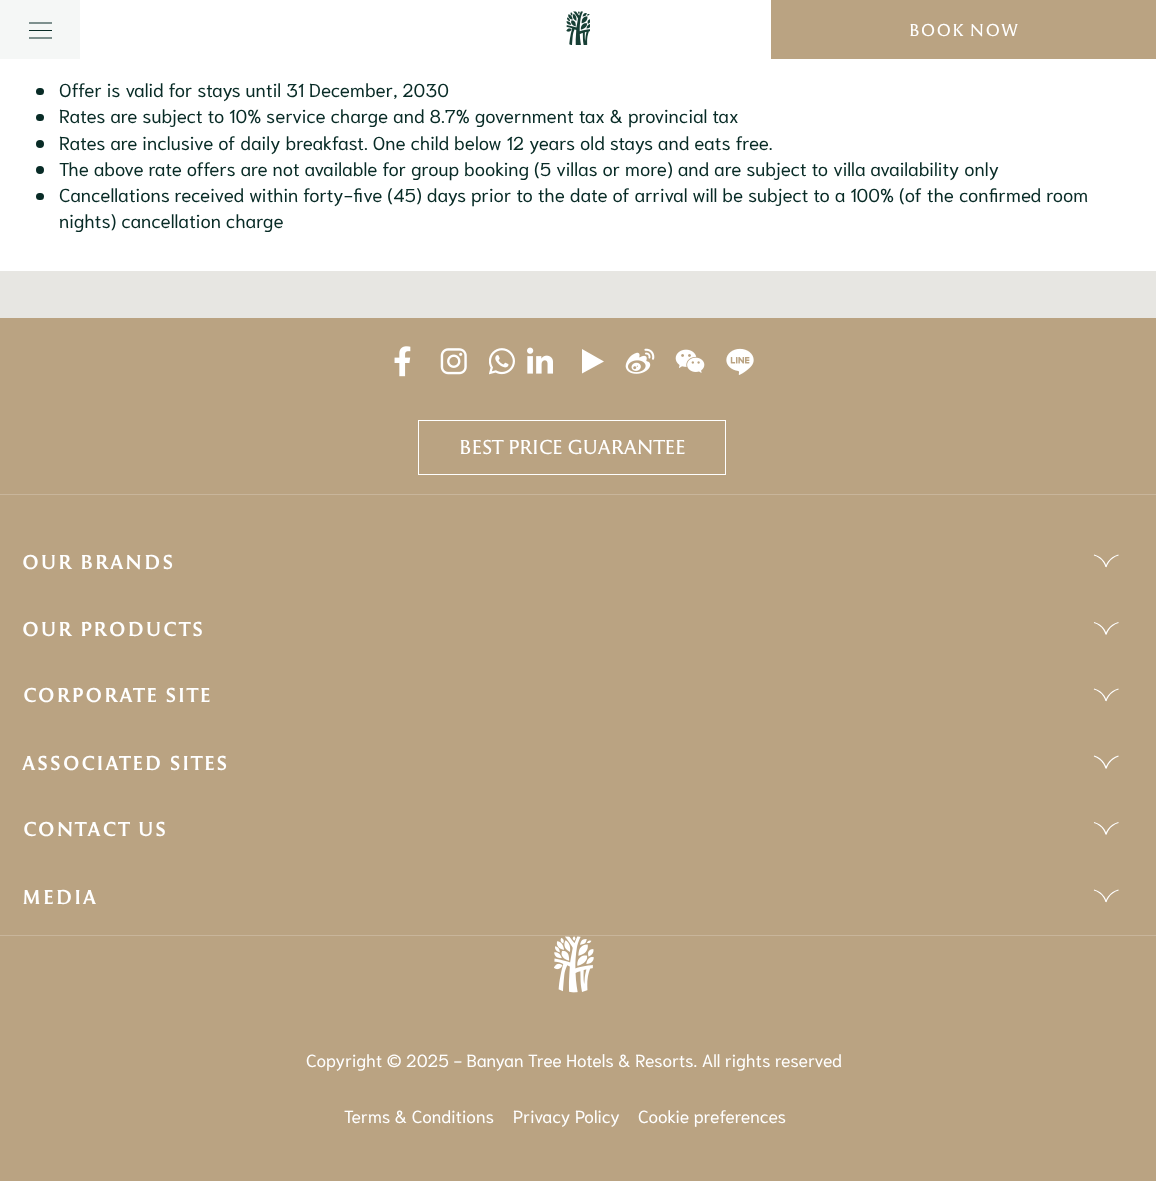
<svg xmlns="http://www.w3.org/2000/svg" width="1156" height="1181">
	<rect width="100%" height="100%" fill="#E7E6E2" />
	<rect x="80" y="0" width="691" height="59" fill="#FFFFFF" />
	<rect x="0" y="0" width="80" height="59" fill="#F5F7F6" />
	<path d="M29 30.5H52M29 23H52M29 38H52" fill="none" stroke="#082B26" stroke-width="1.2" />
	<image x="566" y="11" width="24" height="34" href="assets/img1.png" />
	<rect x="771" y="0" width="385" height="59" fill="#BAA382" />
	<text x="909" y="36" font-family="'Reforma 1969'" font-size="16" font-weight="500" letter-spacing="1.25" fill="#FFFFFF">BOOK NOW</text>
	<rect x="0" y="59" width="1156" height="212" fill="#FFFFFF" />
	<rect x="36" y="88" width="8" height="7" rx="3.5" fill="#082B26" />
	<text x="59" y="97" font-family="Niramit" font-size="18.75" fill="#082B26">Offer is valid for stays until 31 December, 2030</text>
	<rect x="36" y="114" width="8" height="7" rx="3.5" fill="#082B26" />
	<text x="59" y="123" font-family="Niramit" font-size="18.75" fill="#082B26">Rates are subject to 10% service charge and 8.7% government tax &amp; provincial tax</text>
	<circle cx="40" cy="144" r="4" fill="#082B26" />
	<text x="59" y="150" font-family="Niramit" font-size="18.75" fill="#082B26">Rates are inclusive of daily breakfast. One child below 12 years old stays and eats free.</text>
	<circle cx="40" cy="170" r="4" fill="#082B26" />
	<text x="59" y="176" font-family="Niramit" font-size="18.75" fill="#082B26">The above rate offers are not available for group booking (5 villas or more) and are subject to villa availability only</text>
	<rect x="36" y="193" width="8" height="7" rx="3.5" fill="#082B26" />
	<g font-family="Niramit" font-size="18.75" fill="#082B26">
		<text x="59" y="202">Cancellations received within forty-five (45) days prior to the date of arrival will be subject to a 100% (of the confirmed room</text>
		<text x="59" y="228">nights) cancellation charge</text>
	</g>
	<rect x="0" y="318" width="1156" height="863" fill="#BAA382" />
	<image x="394" y="346" width="17" height="31" href="assets/img2.png" />
	<image x="440" y="348" width="27" height="27" href="assets/img3.png" />
	<image x="489" y="348" width="26" height="27" href="assets/img4.png" />
	<image x="527" y="347" width="26" height="27" href="assets/img5.png" />
	<path d="M582 373.5V349L604 361.5Z" fill="#FFFFFF" />
	<image x="625" y="348" width="30" height="26" href="assets/img6.png" />
	<image x="675" y="349" width="30" height="24" href="assets/img7.png" />
	<image x="726" y="348" width="28" height="27" href="assets/img8.png" />
	<rect x="418.5" y="420.5" width="307" height="54" fill="none" stroke="#FFFFFF" />
	<text x="459" y="454" font-family="'Reforma 1969'" font-size="18.75" font-weight="500" fill="#FFFFFF">BEST PRICE GUARANTEE</text>
	<rect x="0" y="494" width="1156" height="1" fill="#C8B59B" />
	<text x="22" y="569" font-family="'Reforma 1969'" font-size="18.75" font-weight="700" letter-spacing="1.9" fill="#FFFFFF">OUR BRANDS</text>
	<path d="M1106 567C1106 567 1108 558 1118.5 555M1106 567C1106 567 1104.5 558 1094 555" fill="none" stroke="#FFFFFF" stroke-width="1.2" />
	<text x="22" y="636" font-family="'Reforma 1969'" font-size="18.75" font-weight="700" letter-spacing="1.9" fill="#FFFFFF">OUR PRODUCTS</text>
	<path d="M1106 634.5C1106 634.5 1108 625.5 1118.5 622.5M1106 634.5C1106 634.5 1104.5 625.5 1094 622.5" fill="none" stroke="#FFFFFF" stroke-width="1.2" />
	<text x="23" y="702" font-family="'Reforma 1969'" font-size="18.75" font-weight="700" letter-spacing="1.9" fill="#FFFFFF">CORPORATE SITE</text>
	<path d="M1106 701C1106 701 1108 692 1118.5 689M1106 701C1106 701 1104.5 692 1094 689" fill="none" stroke="#FFFFFF" stroke-width="1.2" />
	<text x="22" y="770" font-family="'Reforma 1969'" font-size="18.75" font-weight="700" letter-spacing="1.9" fill="#FFFFFF">ASSOCIATED SITES</text>
	<path d="M1106 768.5C1106 768.5 1108 759.5 1118.5 756M1106 768.5C1106 768.5 1104.5 759.5 1094 756" fill="none" stroke="#FFFFFF" stroke-width="1.2" />
	<text x="23" y="836" font-family="'Reforma 1969'" font-size="18.75" font-weight="700" letter-spacing="1.9" fill="#FFFFFF">CONTACT US</text>
	<path d="M1106 834.5C1106 834.5 1108 825.5 1118.5 822.5M1106 834.5C1106 834.5 1104.5 825.5 1094 822.5" fill="none" stroke="#FFFFFF" stroke-width="1.2" />
	<text x="22" y="904" font-family="'Reforma 1969'" font-size="18.75" font-weight="700" letter-spacing="1.9" fill="#FFFFFF">MEDIA</text>
	<path d="M1106 902C1106 902 1108 893 1118.5 890M1106 902C1106 902 1104.5 893 1094 890" fill="none" stroke="#FFFFFF" stroke-width="1.2" />
	<rect x="0" y="935" width="1156" height="1" fill="#C8B59B" />
	<image x="554" y="936" width="40" height="57" href="assets/img9.png" />
	<g font-family="Niramit" font-size="17.5" fill="#FFFFFF">
		<text x="306" y="1067">Copyright © 2025 - Banyan Tree Hotels &amp; Resorts. All rights reserved</text>
		<text x="344" y="1123">Terms &amp; Conditions</text>
		<text x="513" y="1123">Privacy Policy</text>
		<text x="638" y="1123">Cookie preferences</text>
	</g>
</svg>
